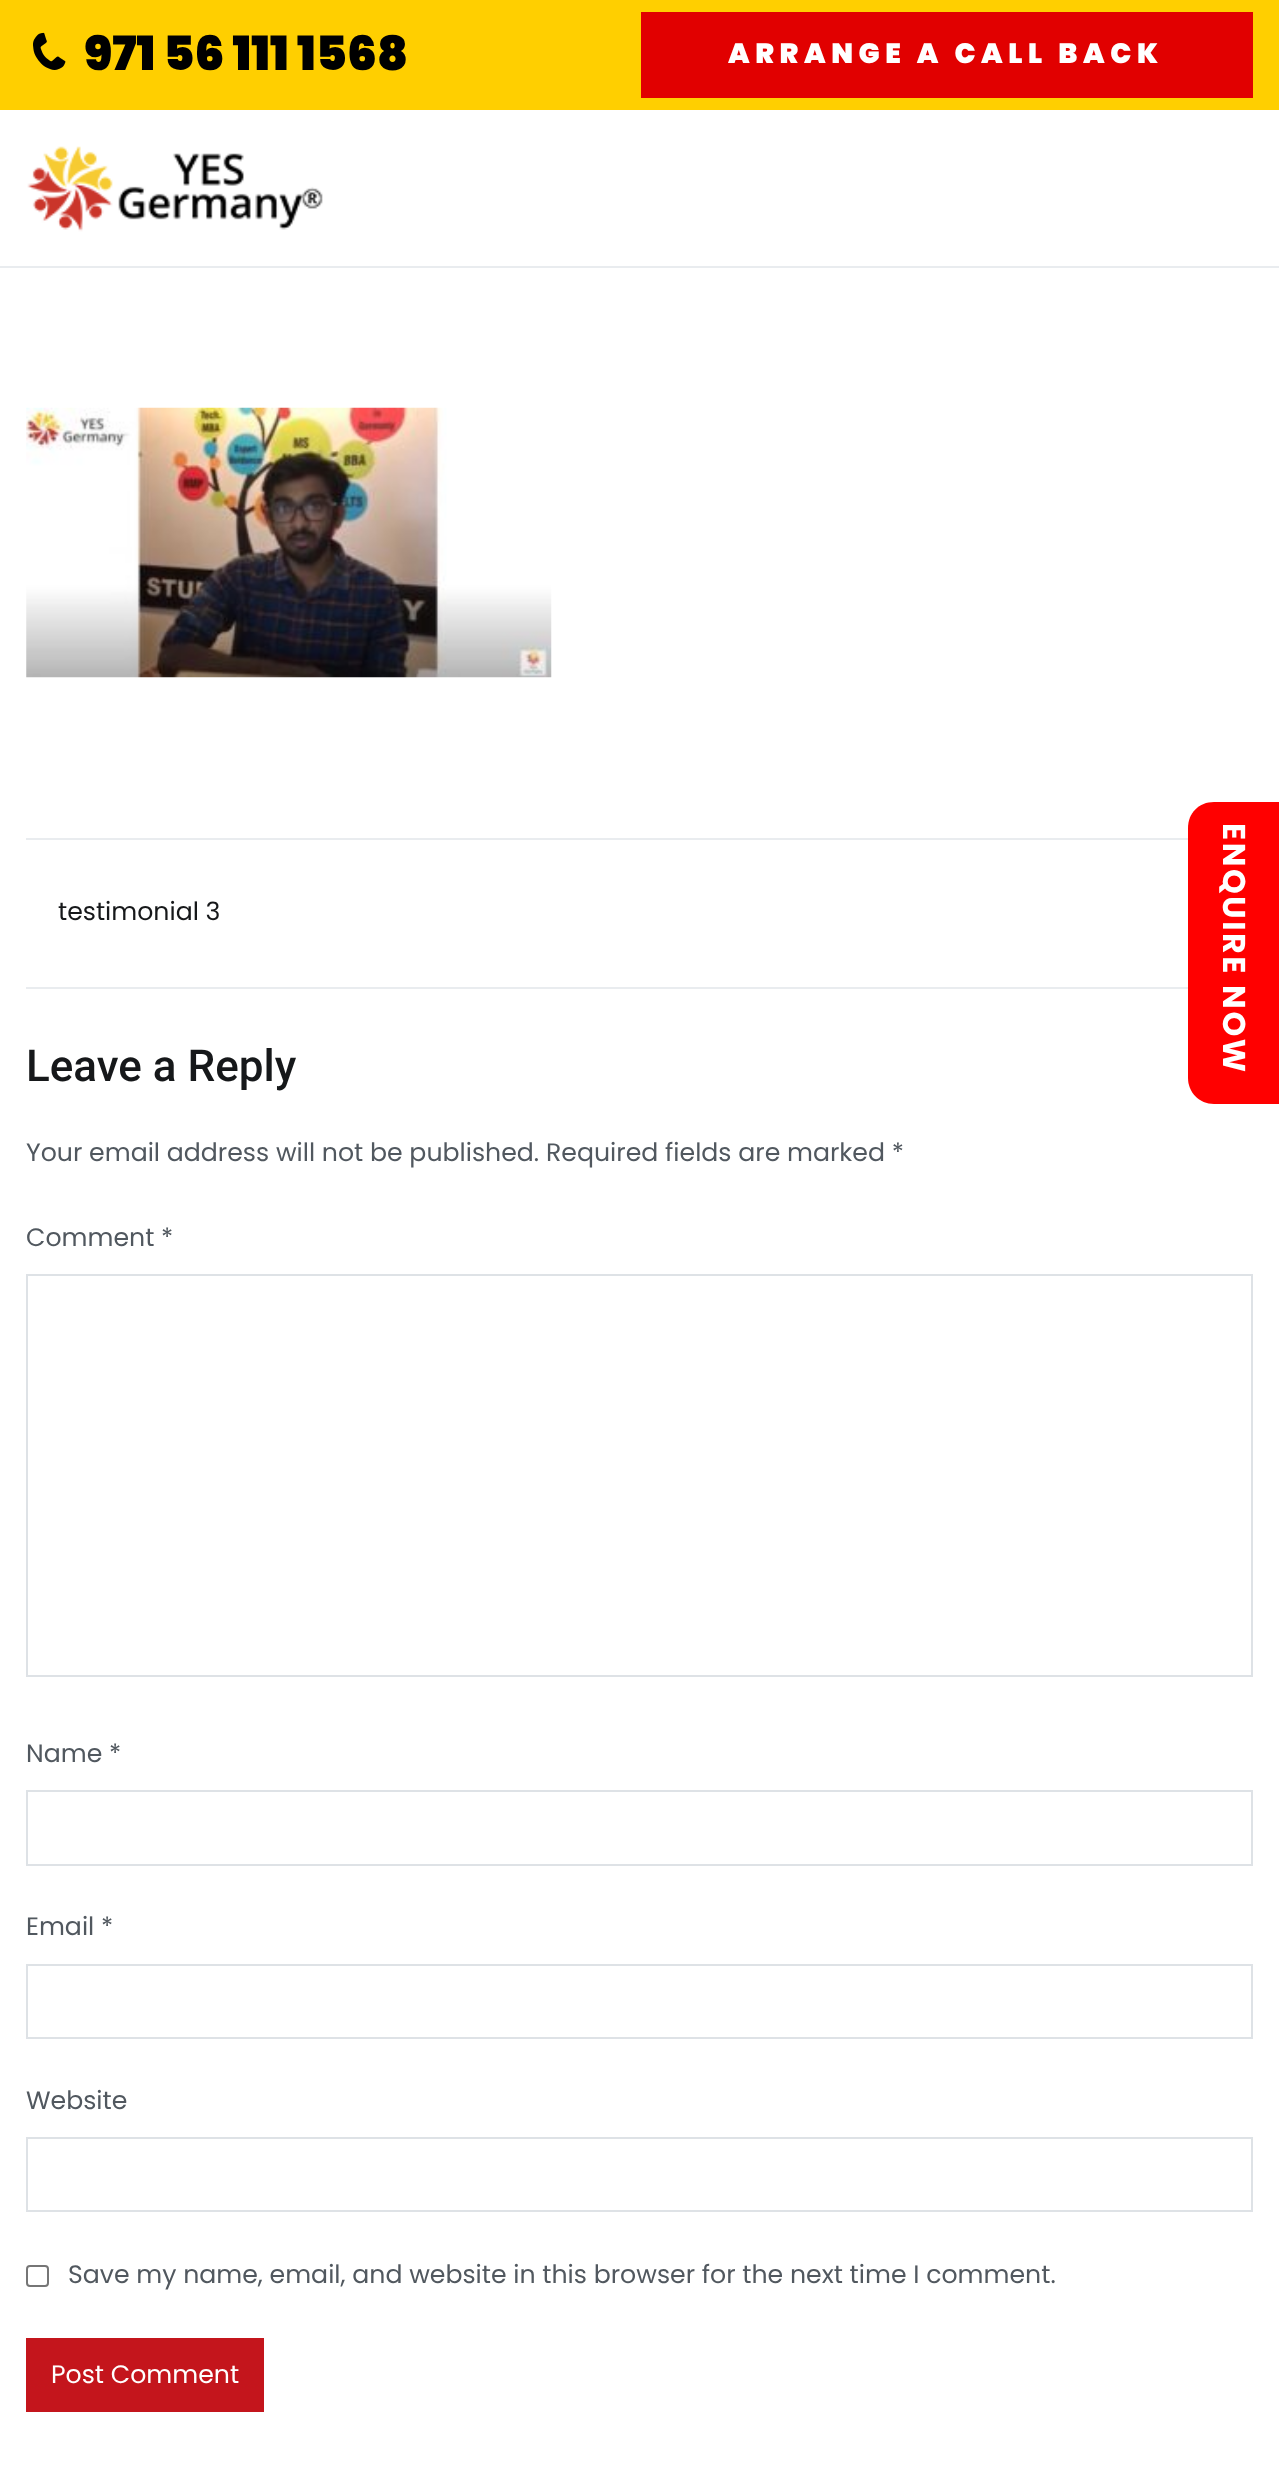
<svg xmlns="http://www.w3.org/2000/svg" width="1279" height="2475">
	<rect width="100%" height="100%" fill="#FFFFFF" />
	<rect x="0" y="266" width="1279" height="2" fill="#E9ECEF" />
	<rect x="0" y="0" width="1279" height="110" fill="#FFCF00" />
	<image x="33" y="32" width="33" height="38" href="assets/img1.png" />
	<text x="84" y="70" font-family="Poppins" font-size="47.25" font-weight="900" fill="#000000">971 56 111 1568</text>
	<rect x="641" y="12" width="612" height="86" fill="#E10000" />
	<text x="728" y="63" font-family="Poppins" font-size="28" font-weight="900" letter-spacing="5.6" fill="#FFFFFF">ARRANGE A CALL BACK</text>
	<image x="27" y="146" width="296" height="86" href="assets/img2.png" />
	<image x="26" y="407" width="526" height="271" href="assets/img3.png" />
	<rect x="26" y="838" width="1162" height="2" fill="#E9ECEF" />
	<text x="58" y="920" font-family="Poppins" font-size="25.2" fill="#16181A">testimonial 3</text>
	<rect x="26" y="987" width="1162" height="2" fill="#E9ECEF" />
	<text x="26" y="1081" font-family="Roboto" font-size="44" font-weight="500" fill="#16181A">Leave a Reply</text>
	<g font-family="Poppins" font-size="25.2" fill="#51585F">
		<text x="26" y="1161">Your email address will not be published.</text>
		<text x="546" y="1161">Required fields are marked *</text>
		<text x="26" y="1246">Comment *</text>
	</g>
	<rect x="27" y="1275" width="1225" height="401" fill="none" stroke="#DEE2E6" stroke-width="2" />
	<text x="26" y="1762" font-family="Poppins" font-size="25.2" fill="#51585F">Name *</text>
	<rect x="27" y="1791" width="1225" height="74" fill="none" stroke="#DEE2E6" stroke-width="2" />
	<text x="26" y="1935" font-family="Poppins" font-size="25.2" fill="#51585F">Email *</text>
	<rect x="27" y="1965" width="1225" height="73" fill="none" stroke="#DEE2E6" stroke-width="2" />
	<text x="26" y="2109" font-family="Poppins" font-size="25.2" fill="#51585F">Website</text>
	<rect x="27" y="2138" width="1225" height="73" fill="none" stroke="#DEE2E6" stroke-width="2" />
	<rect x="27" y="2266" width="21" height="20" rx="3" fill="none" stroke="#767676" stroke-width="2" />
	<text x="68" y="2283" font-family="Poppins" font-size="25.2" fill="#51585F">Save my name, email, and website in this browser for the next time I comment.</text>
	<rect x="26" y="2338" width="238" height="74" fill="#C4151C" />
	<text x="51" y="2383" font-family="Poppins" font-size="25.2" fill="#FFFFFF">Post Comment</text>
	<path d="M1279 802V1104H1214C1199 1104 1188 1092 1188 1078V828C1188 813 1199 802 1214 802Z" fill="#FF0000" />
	<text x="1223" y="823" transform="rotate(90 1223 823)" font-family="Poppins" font-size="31.5" font-weight="700" letter-spacing="2.6" fill="#FFFFFF">ENQUIRE NOW</text>
</svg>
